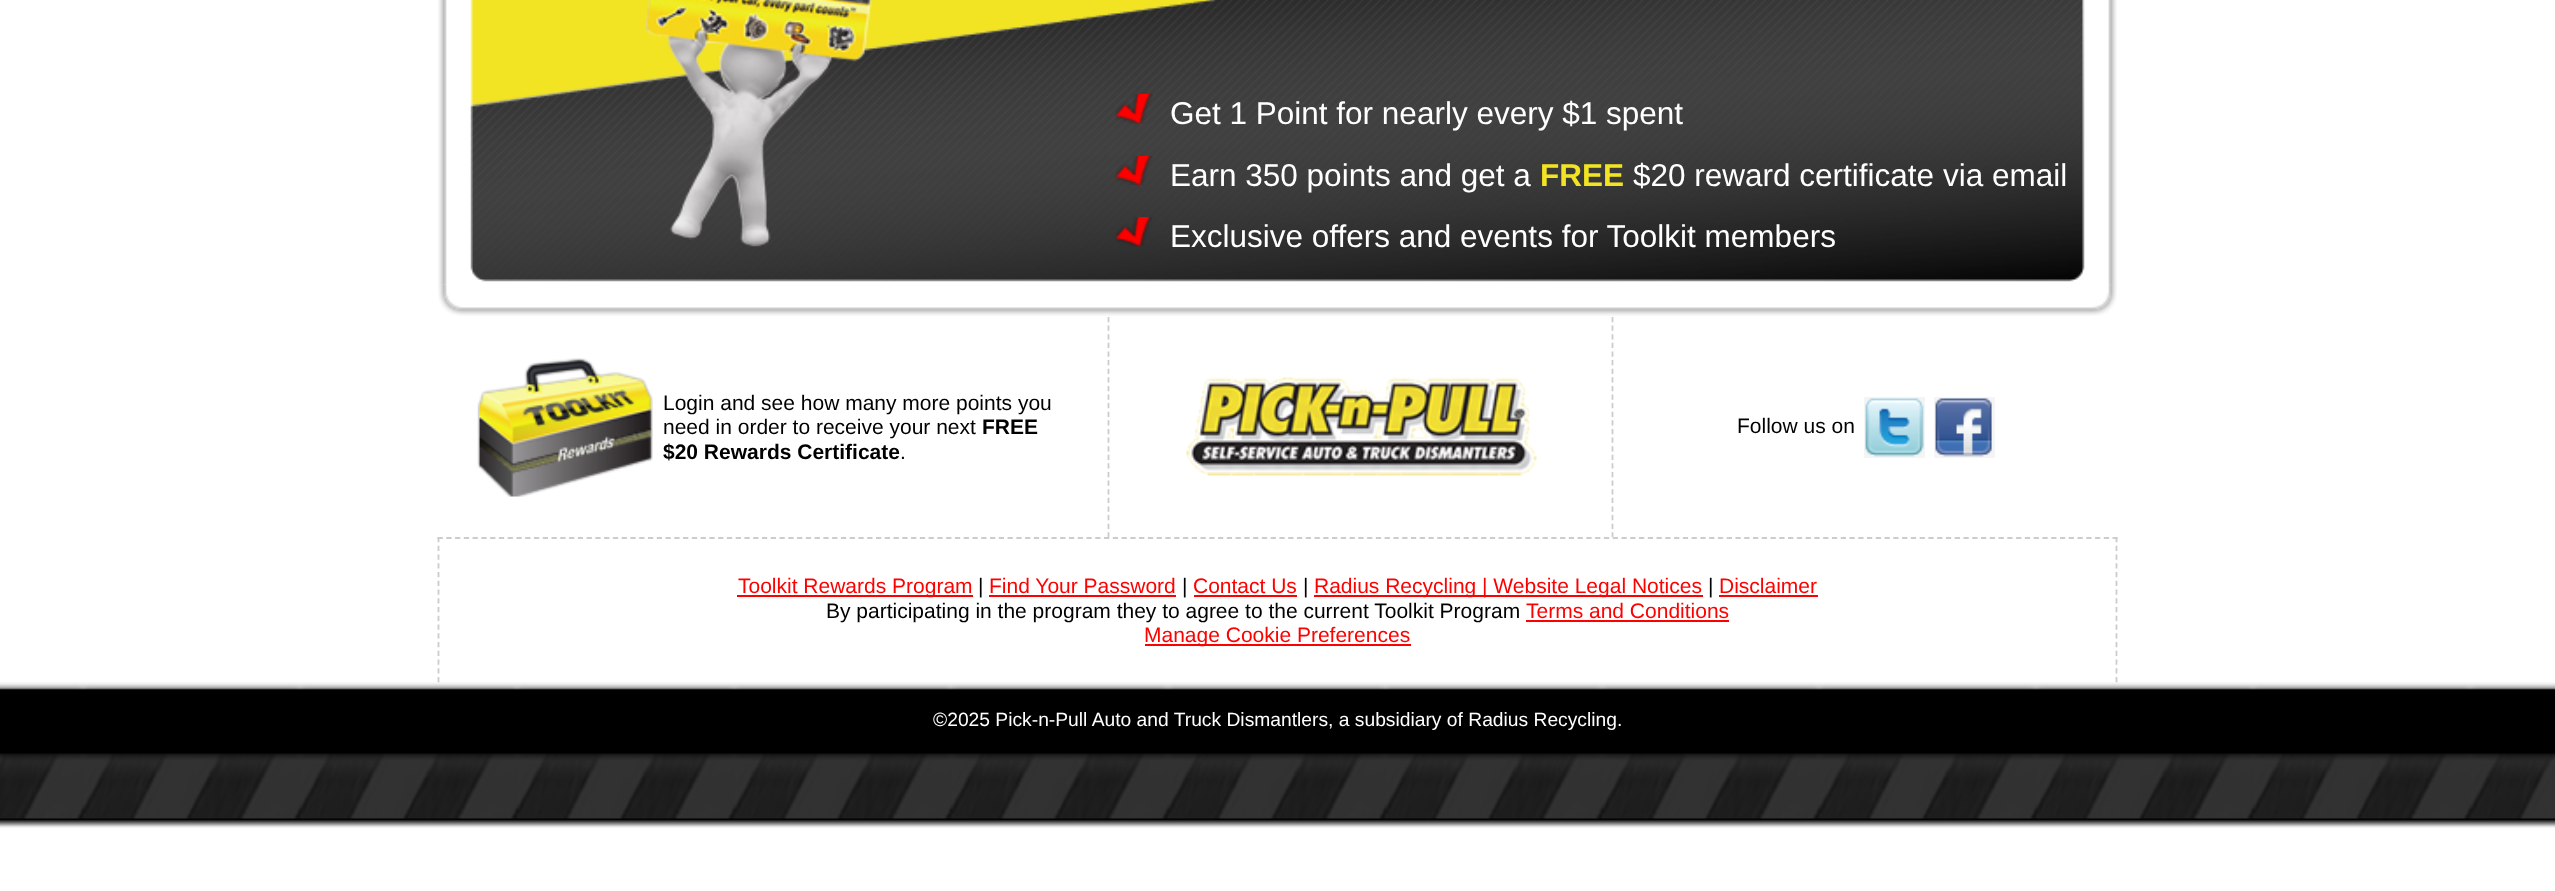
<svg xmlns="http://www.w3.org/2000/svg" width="2555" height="891">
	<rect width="100%" height="100%" fill="#FFFFFF" />
	<image x="438" y="0" width="1679" height="285" href="assets/img1.png" />
	<image x="470" y="0" width="1615" height="282" href="assets/img2.png" />
	<image x="645" y="0" width="227" height="247" href="assets/img3.png" />
	<image x="1115" y="94" width="38" height="30" href="assets/img4.png" />
	<text x="1170" y="124" font-family="Liberation Sans" font-size="31.5" fill="#FFFFFF">Get 1 Point for nearly every $1 spent</text>
	<image x="1115" y="156" width="38" height="29" href="assets/img5.png" />
	<text x="1170" y="186" font-family="Liberation Sans" font-size="31.5" fill="#FFFFFF">Earn 350 points and get a</text>
	<text x="1540" y="186" font-family="Liberation Sans" font-size="31.5" font-weight="700" fill="#F2E422">FREE</text>
	<text x="1633" y="186" font-family="Liberation Sans" font-size="31.5" fill="#FFFFFF">$20 reward certificate via email</text>
	<image x="1115" y="217" width="38" height="30" href="assets/img6.png" />
	<text x="1170" y="247" font-family="Liberation Sans" font-size="31.5" fill="#FFFFFF">Exclusive offers and events for Toolkit members</text>
	<image x="438" y="284" width="1679" height="32" href="assets/img7.png" />
	<path d="M1108.5 317V537" fill="none" stroke="#CCCCCC" stroke-width="1.8" stroke-dasharray="5.25 3.36" />
	<image x="477" y="358" width="176" height="139" href="assets/img8.png" />
	<g font-family="Liberation Sans" font-size="21" fill="#000000">
		<text x="663" y="410">Login and see how many more points you</text>
		<text x="663" y="434">need in order to receive your next</text>
	</g>
	<g font-family="Liberation Sans" font-size="21" font-weight="700" fill="#000000">
		<text x="982" y="434">FREE</text>
		<text x="663" y="459">$20 Rewards Certificate</text>
	</g>
	<text x="900" y="459" font-family="Liberation Sans" font-size="21" fill="#000000">.</text>
	<path d="M1612.5 317V537" fill="none" stroke="#CCCCCC" stroke-width="1.8" stroke-dasharray="5.25 3.36" />
	<image x="1186" y="377" width="351" height="99" href="assets/img9.png" />
	<text x="1737" y="433" font-family="Liberation Sans" font-size="21" fill="#000000">Follow us on</text>
	<image x="1864" y="397" width="61" height="61" href="assets/img10.png" />
	<image x="1934" y="397" width="61" height="61" href="assets/img11.png" />
	<path d="M437.5 538H2117.5" fill="none" stroke="#CCCCCC" stroke-width="1.8" stroke-dasharray="5.25 3.52" />
	<path d="M2116.5 537V682.5" fill="none" stroke="#CCCCCC" stroke-width="1.8" stroke-dasharray="5.25 3.5" />
	<path d="M438.5 537V682.5" fill="none" stroke="#CCCCCC" stroke-width="1.8" stroke-dasharray="5.25 3.5" />
	<rect x="737" y="595" width="236" height="2" fill="#FF0000" />
	<text x="738" y="593" font-family="Liberation Sans" font-size="21" fill="#FF0000">Toolkit Rewards Program</text>
	<text x="978" y="593" font-family="Liberation Sans" font-size="21" fill="#000000">|</text>
	<text x="989" y="593" font-family="Liberation Sans" font-size="21" fill="#FF0000">Find Your Password</text>
	<rect x="989" y="595" width="187" height="2" fill="#FF0000" />
	<text x="1182" y="593" font-family="Liberation Sans" font-size="21" fill="#000000">|</text>
	<text x="1193" y="593" font-family="Liberation Sans" font-size="21" fill="#FF0000">Contact Us</text>
	<rect x="1194" y="595" width="103" height="2" fill="#FF0000" />
	<text x="1303" y="593" font-family="Liberation Sans" font-size="21" fill="#000000">|</text>
	<rect x="1314" y="595" width="389" height="2" fill="#FF0000" />
	<text x="1314" y="593" font-family="Liberation Sans" font-size="21" fill="#FF0000">Radius Recycling | Website Legal Notices</text>
	<text x="1708" y="593" font-family="Liberation Sans" font-size="21" fill="#000000">|</text>
	<text x="1719" y="593" font-family="Liberation Sans" font-size="21" fill="#FF0000">Disclaimer</text>
	<rect x="1719" y="595" width="99" height="2" fill="#FF0000" />
	<text x="826" y="618" font-family="Liberation Sans" font-size="21" fill="#000000">By participating in the program they to agree to the current Toolkit Program</text>
	<text x="1526" y="618" font-family="Liberation Sans" font-size="21" fill="#FF0000">Terms and Conditions</text>
	<rect x="1526" y="620" width="203" height="2" fill="#FF0000" />
	<rect x="1145" y="644" width="266" height="2" fill="#FF0000" />
	<text x="1144" y="642" font-family="Liberation Sans" font-size="21" fill="#FF0000">Manage Cookie Preferences</text>
	<image x="0" y="682" width="2555" height="146" href="assets/img12.png" />
	<text x="933" y="726" font-family="Liberation Sans" font-size="19.25" fill="#FFFFFF">©2025 Pick-n-Pull Auto and Truck Dismantlers, a subsidiary of Radius Recycling.</text>
</svg>
